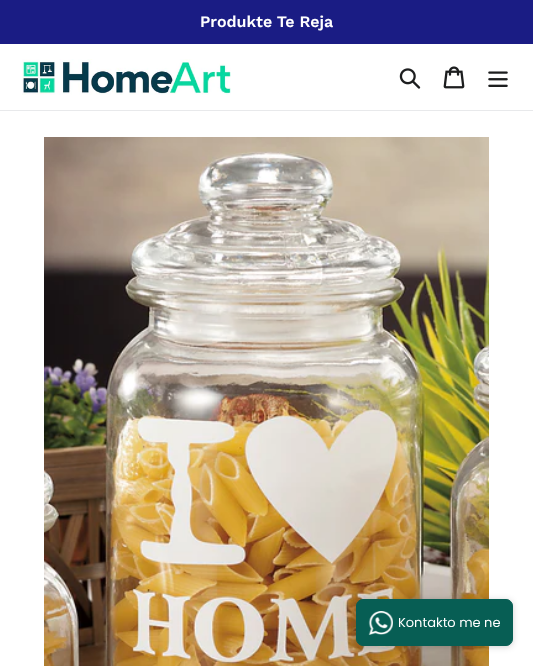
<svg xmlns="http://www.w3.org/2000/svg" width="533" height="666">
	<rect width="100%" height="100%" fill="#FFFFFF" />
	<rect x="0" y="0" width="533" height="44" fill="#1A1C84" />
	<text x="200" y="27" font-family="Work Sans" font-size="16" font-weight="600" fill="#FFFFFF">Produkte Te Reja</text>
	<rect x="0" y="110" width="533" height="1" fill="#E8E9EB" />
	<image x="22" y="59" width="209" height="36" href="assets/img1.png" />
	<image x="399" y="68" width="22" height="21" href="assets/img2.png" />
	<image x="443" y="66" width="22" height="23" href="assets/img3.png" />
	<image x="488" y="71" width="20" height="16" href="assets/img4.png" />
	<image x="44" y="137" width="445" height="529" href="assets/img5.png" />
	<rect x="356" y="600" width="157" height="47" rx="7" fill="#1B1B1B" fill-opacity="0.2" filter="blur(3px)" />
	<rect x="356.5" y="599.5" width="156" height="46" rx="6.5" fill="#075E54" stroke="#075E54" />
	<image x="368" y="611" width="25" height="24" href="assets/img6.png" />
	<text x="398" y="627" font-family="Poppins" font-size="13" fill="#FFFFFF">Kontakto me ne</text>
</svg>
